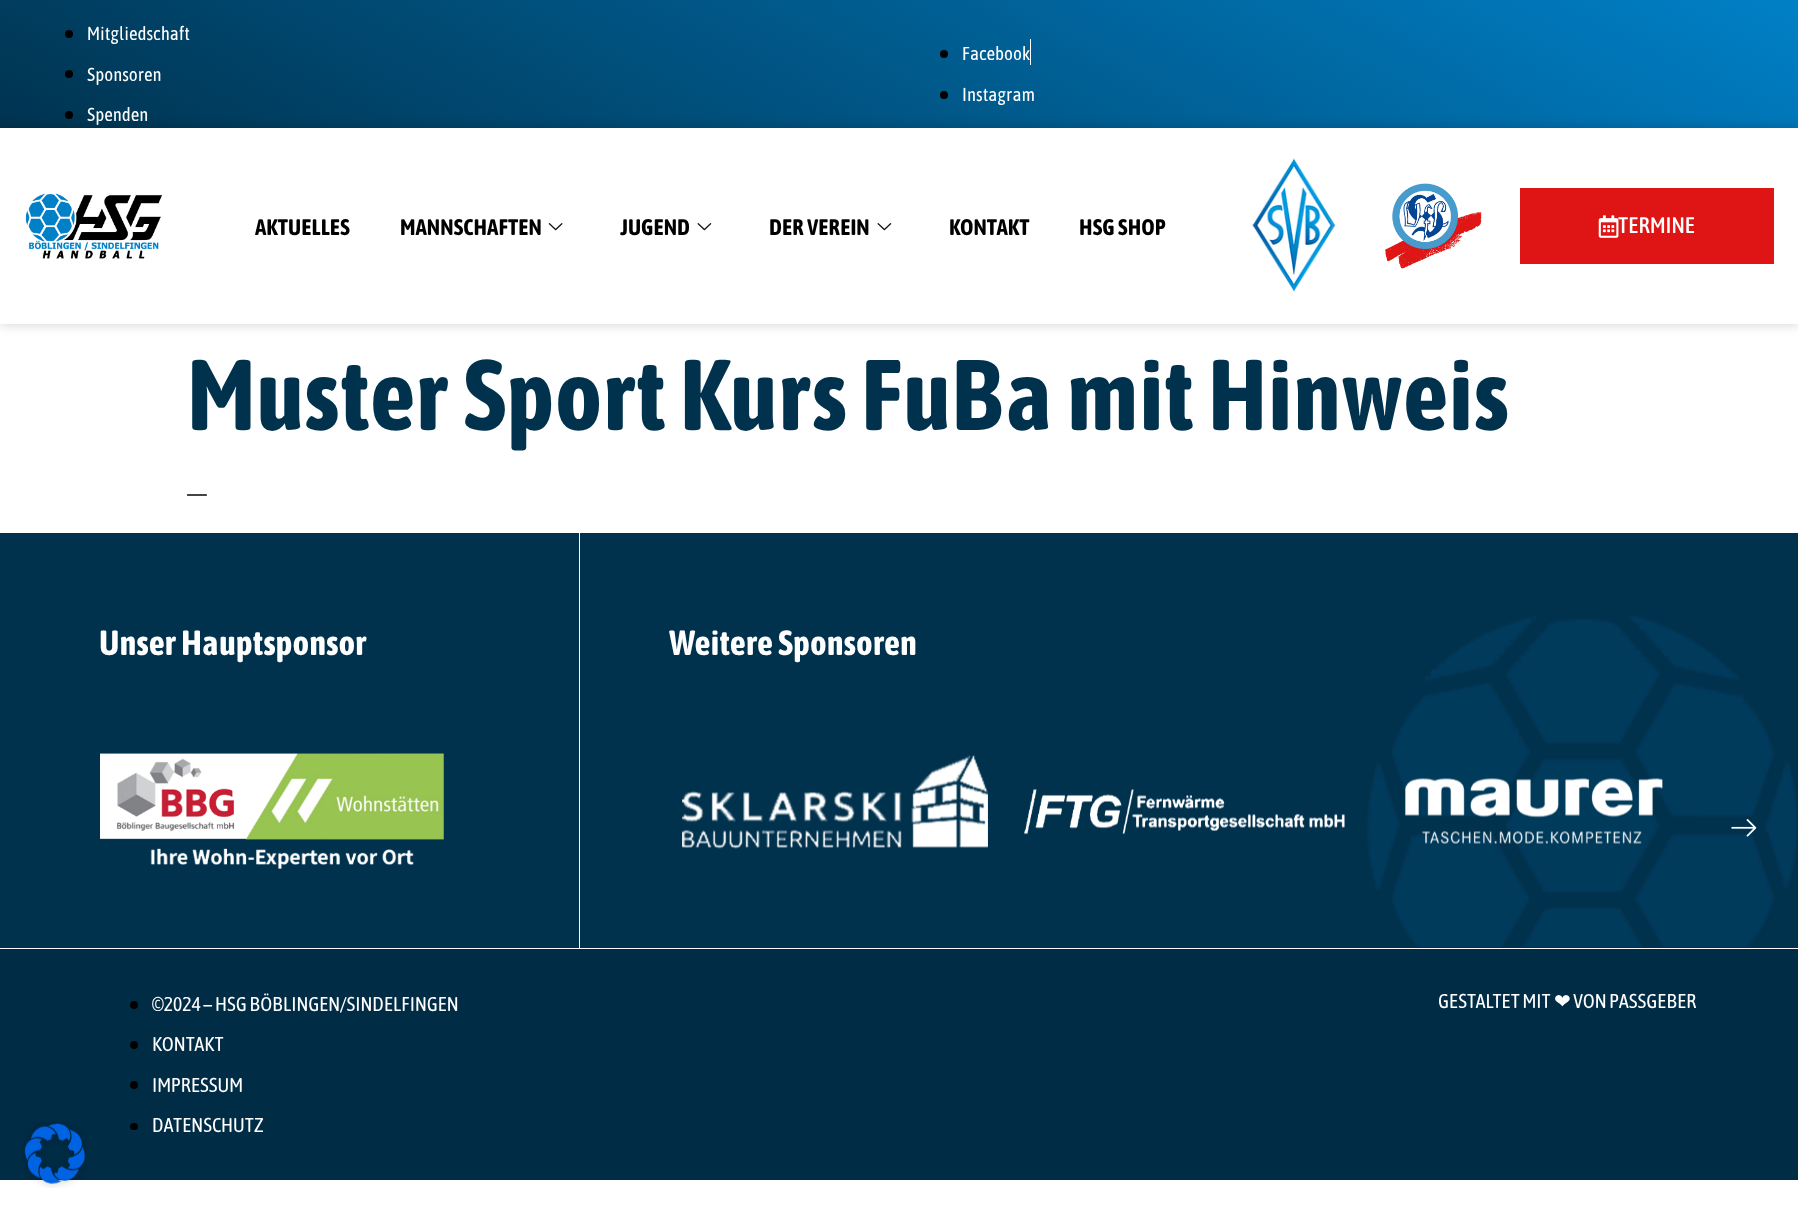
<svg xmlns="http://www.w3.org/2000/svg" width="1798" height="1208">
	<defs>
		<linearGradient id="g1" gradientUnits="userSpaceOnUse" x1="1128" y1="-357" x2="671" y2="503"><stop offset="0" stop-color="#0080C7" /><stop offset="1" stop-color="#00324E" /></linearGradient>
	</defs>
	<rect width="100%" height="100%" fill="#FFFFFF" />
	<rect x="0" y="0" width="1798" height="128" fill="url(#g1)" />
	<circle cx="69" cy="34" r="4" fill="#000000" />
	<text x="87" y="40" font-family="Asap Condensed" font-size="18.75" fill="#FFFFFF">Mitgliedschaft</text>
	<circle cx="69" cy="74" r="4" fill="#000000" />
	<text x="87" y="81" font-family="Asap Condensed" font-size="18.75" fill="#FFFFFF">Sponsoren</text>
	<circle cx="69" cy="115" r="4" fill="#000000" />
	<text x="87" y="121" font-family="Asap Condensed" font-size="18.75" fill="#FFFFFF">Spenden</text>
	<circle cx="944" cy="54" r="4" fill="#000000" />
	<text x="962" y="60" font-family="Asap Condensed" font-size="18.75" fill="#FFFFFF">Facebook</text>
	<rect x="1030" y="39" width="1" height="26" fill="#FFFFFF" />
	<circle cx="944" cy="95" r="4" fill="#000000" />
	<text x="962" y="101" font-family="Asap Condensed" font-size="18.75" fill="#FFFFFF">Instagram</text>
	<rect x="0" y="128" width="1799" height="196" fill="#000000" fill-opacity="0.19" filter="blur(6px)" />
	<rect x="0" y="128" width="1798" height="196" fill="#FFFFFF" />
	<image x="25" y="193" width="137" height="66" href="assets/img1.png" />
	<g font-family="Asap Condensed" font-size="22.5" font-weight="700" fill="#000000">
		<text x="255" y="235">AKTUELLES</text>
		<text x="400" y="235">MANNSCHAFTEN</text>
	</g>
	<image x="548" y="223" width="15" height="8" href="assets/img2.png" />
	<text x="620" y="235" font-family="Asap Condensed" font-size="22.5" font-weight="700" fill="#000000">JUGEND</text>
	<image x="697" y="223" width="15" height="8" href="assets/img3.png" />
	<text x="769" y="235" font-family="Asap Condensed" font-size="22.5" font-weight="700" fill="#000000">DER VEREIN</text>
	<image x="877" y="223" width="15" height="8" href="assets/img3.png" />
	<g font-family="Asap Condensed" font-size="22.5" font-weight="700" fill="#000000">
		<text x="949" y="235">KONTAKT</text>
		<text x="1079" y="235">HSG SHOP</text>
	</g>
	<image x="1252" y="158" width="84" height="134" href="assets/img4.png" />
	<image x="1385" y="183" width="97" height="86" href="assets/img5.png" />
	<rect x="1520" y="188" width="254" height="76" fill="#DF1515" />
	<image x="1598" y="215" width="21" height="23" href="assets/img6.png" />
	<text x="1618" y="233" font-family="Asap Condensed" font-size="22.5" font-weight="500" fill="#FFFFFF">TERMINE</text>
	<text x="187" y="430" font-family="Asap Condensed" font-size="100" font-weight="700" fill="#00324E">Muster Sport Kurs FuBa mit Hinweis</text>
	<text x="187" y="501" font-family="Asap Condensed" font-size="22.5" fill="#000000">—</text>
	<rect x="0" y="533" width="1798" height="415" fill="#00324E" />
	<rect x="579" y="533" width="1" height="415" fill="#F8F8F8" />
	<text x="99" y="655" font-family="Asap Condensed" font-size="35" font-weight="700" fill="#FFFFFF">Unser Hauptsponsor</text>
	<image x="100" y="753" width="344" height="116" href="assets/img7.png" />
	<text x="669" y="655" font-family="Asap Condensed" font-size="35" font-weight="700" fill="#FFFFFF">Weitere Sponsoren</text>
	<image x="682" y="755" width="306" height="94" href="assets/img8.png" />
	<image x="1024" y="789" width="321" height="46" href="assets/img9.png" />
	<image x="1367" y="615" width="431" height="332" href="assets/img12.png" />
	<image x="1405" y="778" width="258" height="66" href="assets/img10.png" />
	<image x="1731" y="819" width="26" height="18" href="assets/img11.png" />
	<rect x="0" y="949" width="1798" height="231" fill="#002C45" />
	<rect x="0" y="948" width="1798" height="1" fill="#F8F8F8" />
	<circle cx="134" cy="1005" r="4" fill="#000000" />
	<text x="152" y="1011" font-family="Asap Condensed" font-size="20" fill="#FFFFFF">©2024 – HSG BÖBLINGEN/SINDELFINGEN</text>
	<circle cx="134" cy="1045" r="4" fill="#000000" />
	<text x="152" y="1051" font-family="Asap Condensed" font-size="20" fill="#FFFFFF">KONTAKT</text>
	<circle cx="134" cy="1085" r="4" fill="#000000" />
	<text x="152" y="1092" font-family="Asap Condensed" font-size="20" fill="#FFFFFF">IMPRESSUM</text>
	<rect x="130" y="1123" width="8" height="7" rx="3.5" fill="#000000" />
	<g font-family="Asap Condensed" font-size="20" fill="#FFFFFF">
		<text x="152" y="1132">DATENSCHUTZ</text>
		<text x="1438" y="1008">GESTALTET MIT</text>
	</g>
	<text x="1554" y="1008" font-family="DejaVu Sans" font-size="20" fill="#FFFFFF">❤</text>
	<text x="1573" y="1008" font-family="Asap Condensed" font-size="20" fill="#FFFFFF">VON PASSGEBER</text>
	<image x="23" y="1122" width="64" height="66" href="assets/img13.png" />
</svg>
